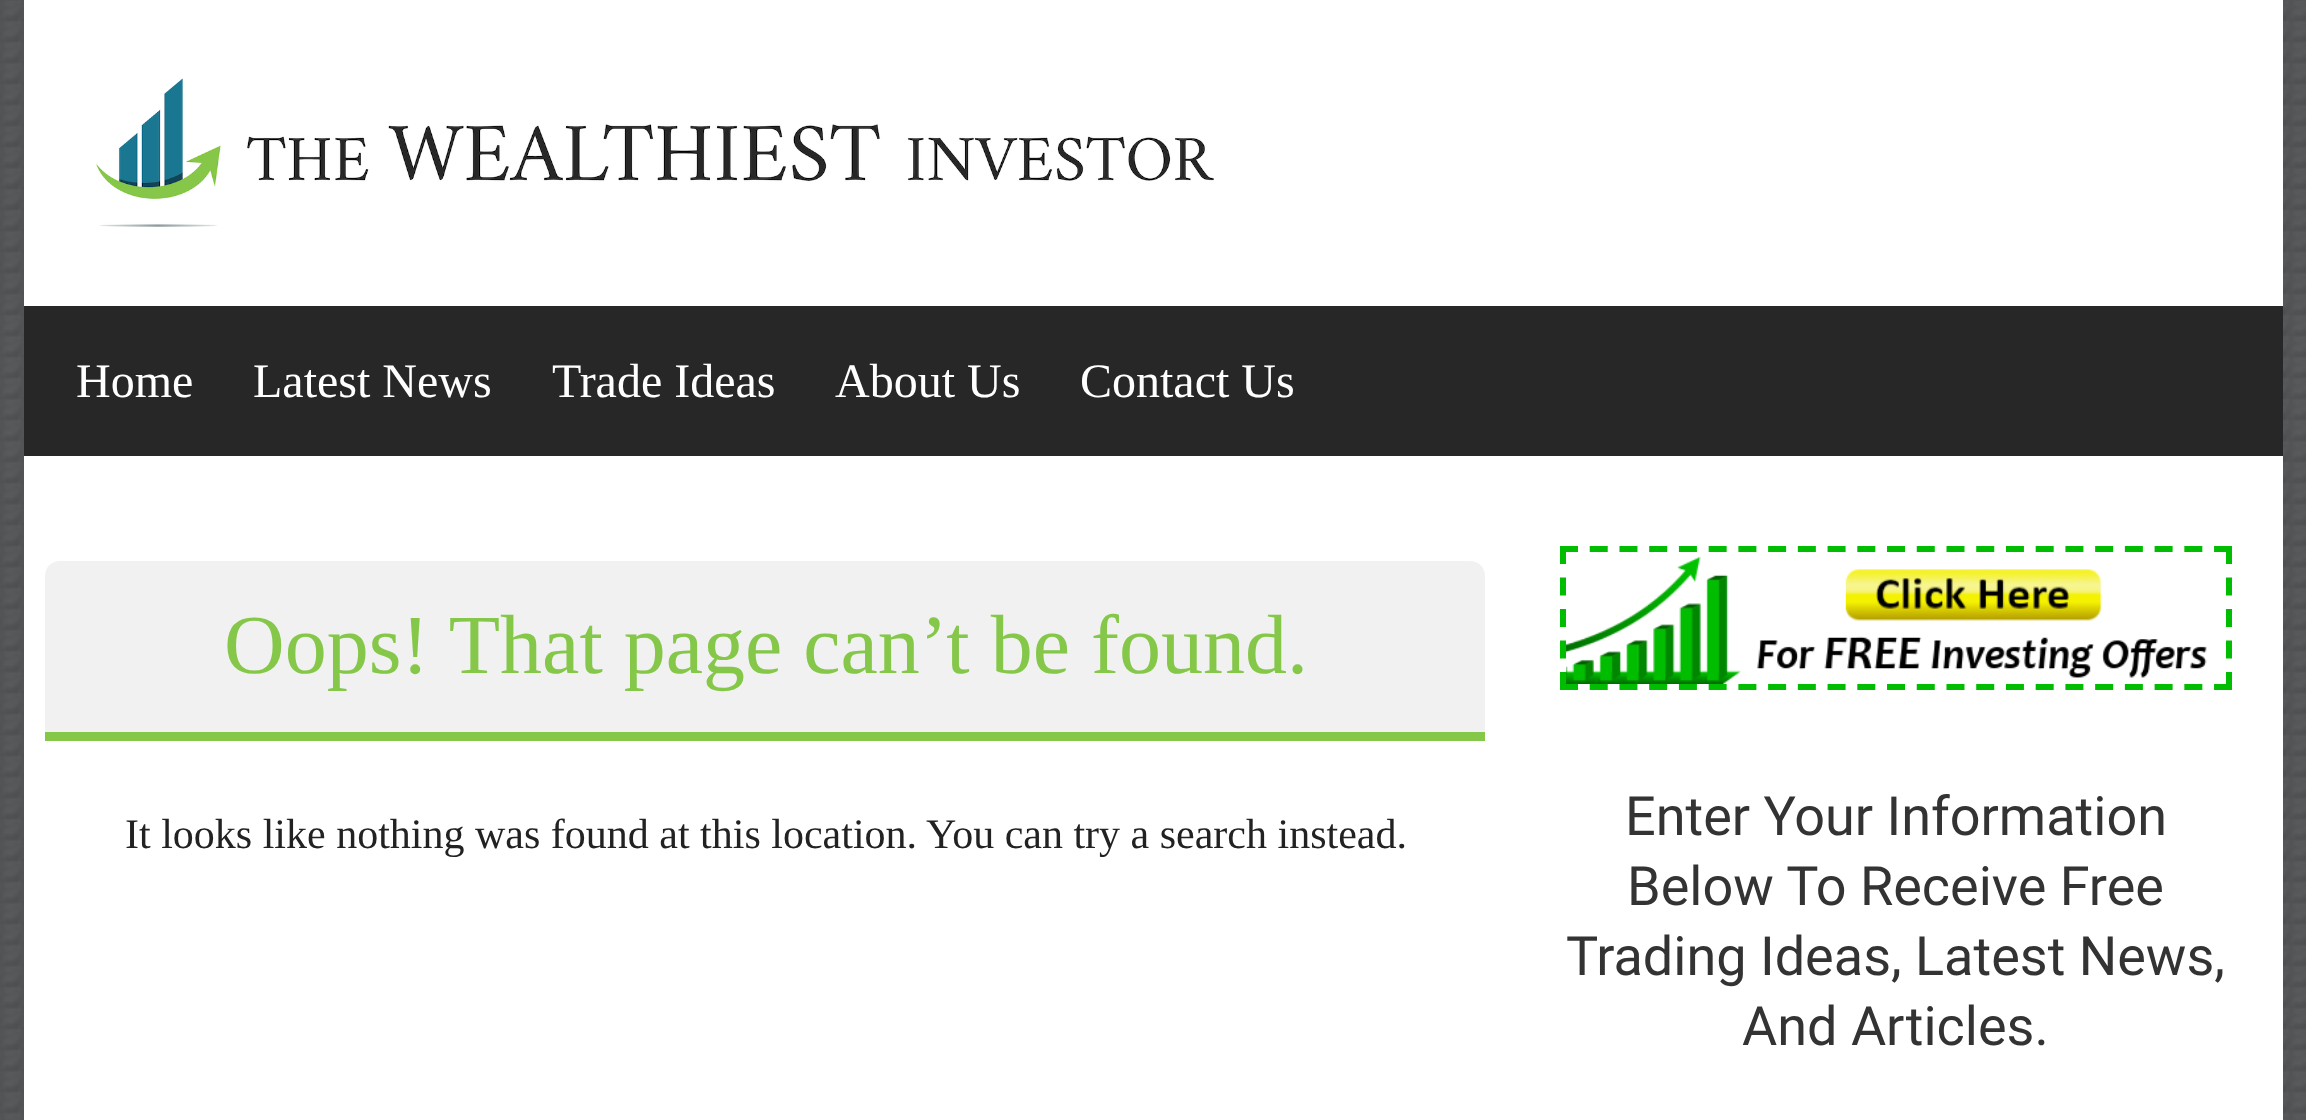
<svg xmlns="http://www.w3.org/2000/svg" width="2306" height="1120">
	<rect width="100%" height="100%" fill="#FFFFFF" />
	<image x="0" y="0" width="2306" height="1120" href="assets/img1.png" />
	<rect x="24" y="0" width="2259" height="1120" fill="#FFFFFF" />
	<image x="96" y="78" width="1118" height="149" href="assets/img2.png" />
	<rect x="24" y="306" width="2259" height="150" fill="#272727" />
	<g font-family="Liberation Serif" font-size="48" fill="#FFFFFF">
		<text x="76" y="397">Home</text>
		<text x="253" y="397">Latest News</text>
		<text x="552" y="397">Trade Ideas</text>
		<text x="835" y="397">About Us</text>
		<text x="1080" y="397">Contact Us</text>
	</g>
	<path d="M60 561H1470C1478.5 561 1485 567.5 1485 576V741H45V576C45 567.5 51.5 561 60 561Z" fill="#F1F1F1" />
	<rect x="45" y="732" width="1440" height="9" fill="#85C749" />
	<text x="224" y="673" font-family="Liberation Serif" font-size="84" fill="#85C749">Oops! That page can’t be found.</text>
	<text x="125" y="848" font-family="Liberation Serif" font-size="42" fill="#222222">It looks like nothing was found at this location. You can try a search instead.</text>
	<path d="M1560 549H2232" fill="none" stroke="#01BD01" stroke-width="6" stroke-dasharray="18 11.73" />
	<path d="M2229 546V690" fill="none" stroke="#01BD01" stroke-width="6" stroke-dasharray="18 13.5" />
	<path d="M1560 687H2232" fill="none" stroke="#01BD01" stroke-width="6" stroke-dasharray="18 11.73" />
	<path d="M1563 546V690" fill="none" stroke="#01BD01" stroke-width="6" stroke-dasharray="18 13.5" />
	<image x="1566" y="556" width="641" height="128" href="assets/img3.png" />
	<g font-family="Roboto" font-size="54" fill="#333333">
		<text x="1625" y="835">Enter Your Information</text>
		<text x="1627" y="905">Below To Receive Free</text>
		<text x="1566" y="975">Trading Ideas, Latest News,</text>
		<text x="1742" y="1045">And Articles.</text>
	</g>
</svg>
